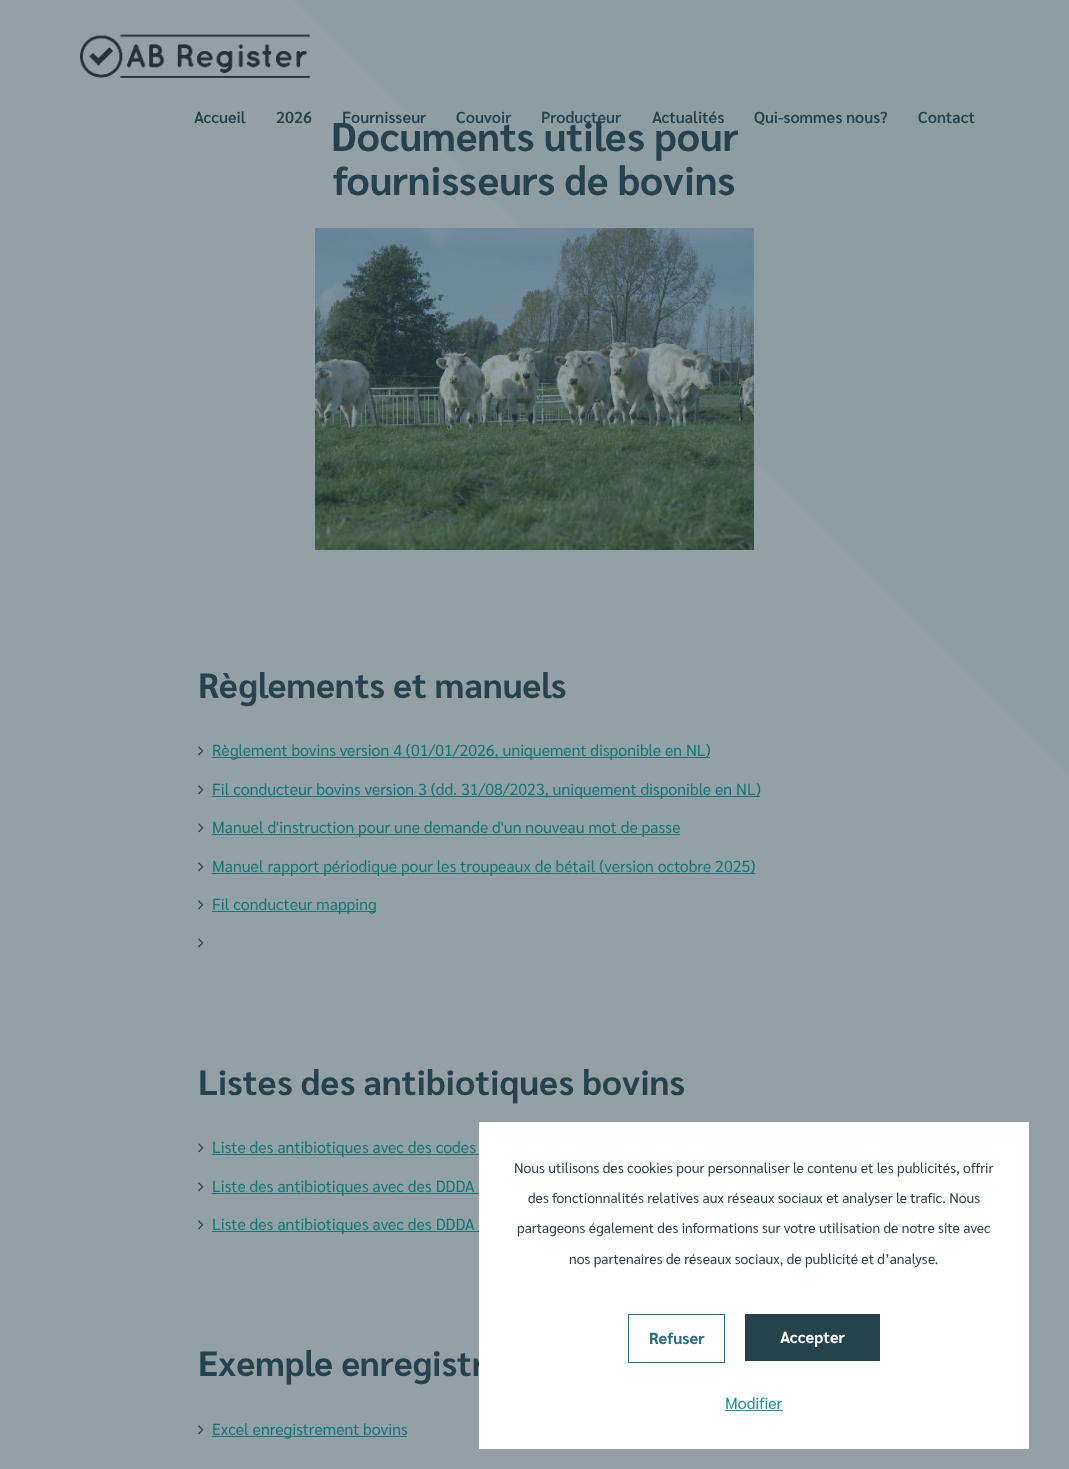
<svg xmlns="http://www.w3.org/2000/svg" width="1069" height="1469">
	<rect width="100%" height="100%" fill="#93A1A6" />
	<path d="M-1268-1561L-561-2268L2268 561L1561 1268Z" fill="#8D9EA3" />
	<image x="80" y="34" width="230" height="44" href="assets/img1.png" />
	<g font-family="Sarabun" font-size="16" font-weight="600" fill="#26434D">
		<text x="194" y="123">Accueil</text>
		<text x="276" y="123">2026</text>
		<text x="342" y="123">Fournisseur</text>
		<text x="456" y="123">Couvoir</text>
		<text x="541" y="123">Producteur</text>
		<text x="652" y="123">Actualités</text>
		<text x="754" y="123">Qui-sommes nous?</text>
		<text x="918" y="123">Contact</text>
	</g>
	<g font-family="Sarabun" font-size="40" font-weight="700" fill="#26434D">
		<text x="331" y="151">Documents utiles pour</text>
		<text x="333" y="195">fournisseurs de bovins</text>
	</g>
	<image x="315" y="228" width="439" height="322" href="assets/img2.png" />
	<text x="198" y="698" font-family="Sarabun" font-size="35" font-weight="700" fill="#26434D">Règlements et manuels</text>
	<image x="198" y="746" width="6" height="10" href="assets/img3.png" />
	<rect x="212" y="757" width="498" height="1" fill="#167775" />
	<text x="212" y="756" font-family="Sarabun" font-size="16" fill="#167775">Règlement bovins version 4 (01/01/2026, uniquement disponible en NL)</text>
	<image x="198" y="785" width="6" height="10" href="assets/img3.png" />
	<rect x="212" y="796" width="548" height="1" fill="#167775" />
	<text x="212" y="795" font-family="Sarabun" font-size="16" fill="#167775">Fil conducteur bovins version 3 (dd. 31/08/2023, uniquement disponible en NL)</text>
	<image x="198" y="823" width="6" height="10" href="assets/img3.png" />
	<rect x="212" y="834" width="468" height="1" fill="#167775" />
	<text x="212" y="833" font-family="Sarabun" font-size="16" fill="#167775">Manuel d'instruction pour une demande d'un nouveau mot de passe</text>
	<image x="198" y="862" width="6" height="10" href="assets/img3.png" />
	<rect x="212" y="873" width="543" height="1" fill="#167775" />
	<text x="212" y="872" font-family="Sarabun" font-size="16" fill="#167775">Manuel rapport périodique pour les troupeaux de bétail (version octobre 2025)</text>
	<image x="198" y="900" width="6" height="10" href="assets/img3.png" />
	<rect x="212" y="911" width="164" height="1" fill="#167775" />
	<text x="212" y="910" font-family="Sarabun" font-size="16" fill="#167775">Fil conducteur mapping</text>
	<image x="198" y="938" width="6" height="10" href="assets/img3.png" />
	<text x="198" y="1095" font-family="Sarabun" font-size="35" font-weight="700" fill="#26434D">Listes des antibiotiques bovins</text>
	<image x="198" y="1143" width="6" height="10" href="assets/img3.png" />
	<rect x="212" y="1154" width="267" height="1" fill="#167775" />
	<text x="212" y="1153" font-family="Sarabun" font-size="16" fill="#167775">Liste des antibiotiques avec des codes</text>
	<image x="198" y="1182" width="6" height="10" href="assets/img3.png" />
	<rect x="212" y="1193" width="267" height="1" fill="#167775" />
	<text x="212" y="1192" font-family="Sarabun" font-size="16" fill="#167775">Liste des antibiotiques avec des DDDA</text>
	<image x="198" y="1220" width="6" height="10" href="assets/img3.png" />
	<rect x="212" y="1231" width="267" height="1" fill="#167775" />
	<text x="212" y="1230" font-family="Sarabun" font-size="16" fill="#167775">Liste des antibiotiques avec des DDDA</text>
	<text x="198" y="1376" font-family="Sarabun" font-size="35" font-weight="700" fill="#26434D">Exemple enregistr</text>
	<image x="198" y="1425" width="6" height="10" href="assets/img3.png" />
	<rect x="212" y="1436" width="195" height="1" fill="#167775" />
	<text x="212" y="1435" font-family="Sarabun" font-size="16" fill="#167775">Excel enregistrement bovins</text>
	<rect x="479" y="1122" width="550" height="327" fill="#FFFFFF" />
	<g font-family="Sarabun" font-size="14" fill="#26434D">
		<text x="514" y="1173">Nous utilisons des cookies pour personnaliser le contenu et les publicités, offrir</text>
		<text x="528" y="1203">des fonctionnalités relatives aux réseaux sociaux et analyser le trafic. Nous</text>
		<text x="517" y="1233">partageons également des informations sur votre utilisation de notre site avec</text>
		<text x="569" y="1264">nos partenaires de réseaux sociaux, de publicité et d’analyse.</text>
	</g>
	<rect x="628.5" y="1314.5" width="96" height="48" fill="none" stroke="#296B80" />
	<text x="649" y="1344" font-family="Sarabun" font-size="16" font-weight="700" fill="#296B80">Refuser</text>
	<rect x="745" y="1314" width="135" height="47" fill="#26434D" />
	<text x="780" y="1343" font-family="Sarabun" font-size="16" font-weight="700" fill="#FFFFFF">Accepter</text>
	<text x="725" y="1409" font-family="Sarabun" font-size="16" fill="#198F9F">Modifier</text>
	<rect x="725" y="1410" width="58" height="1" fill="#198F9F" />
</svg>
